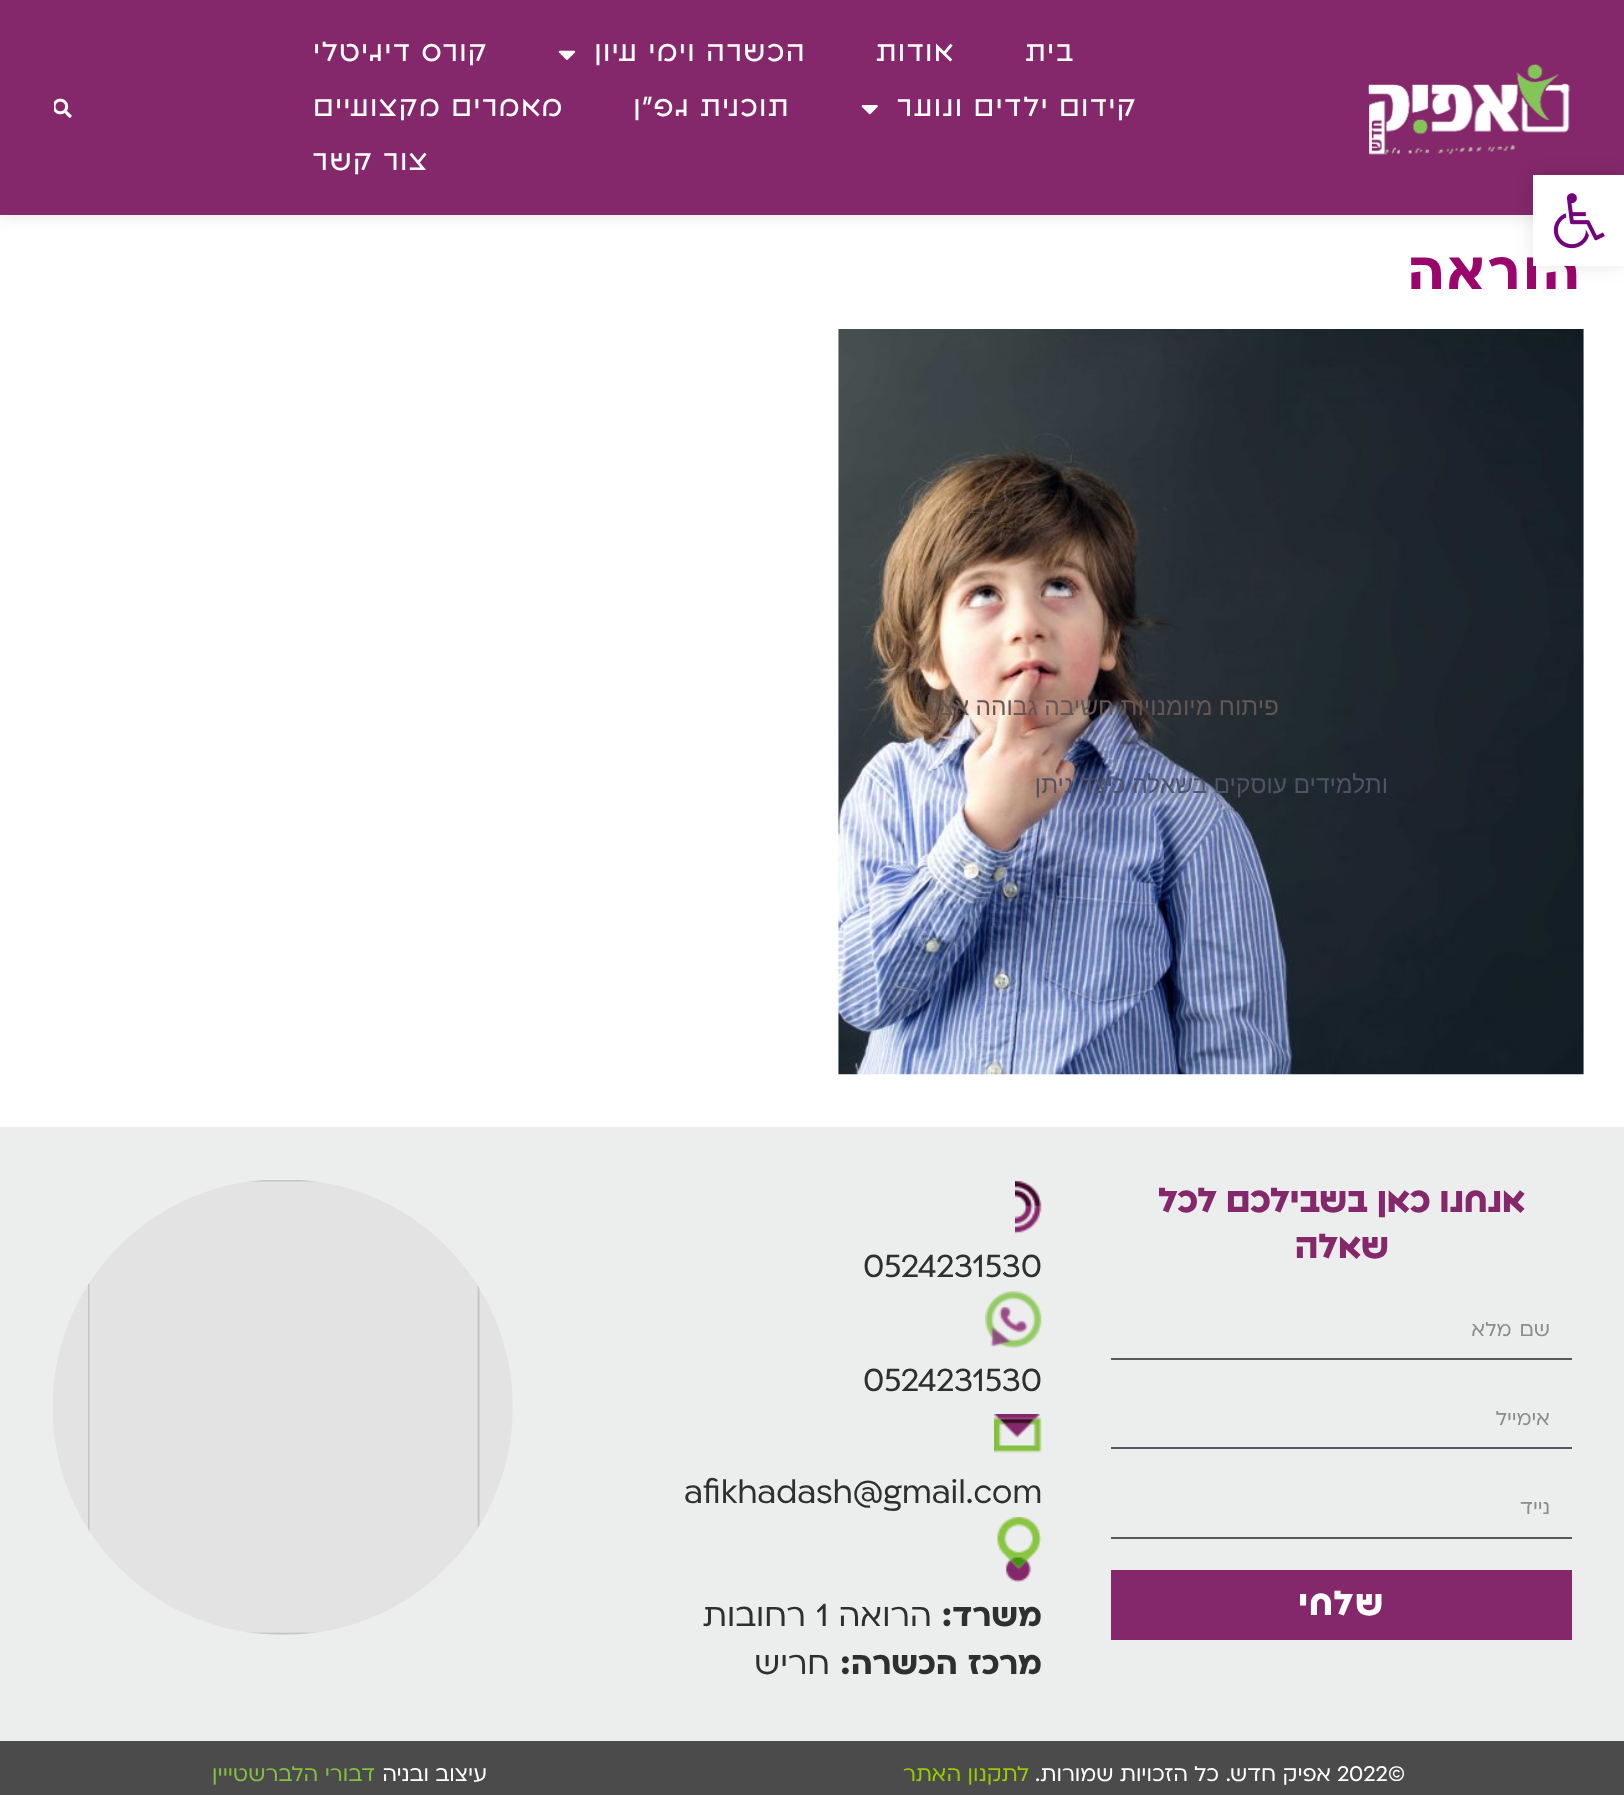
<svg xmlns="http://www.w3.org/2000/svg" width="1624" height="1795">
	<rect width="100%" height="100%" fill="#FFFFFF" />
	<rect x="0" y="0" width="1624" height="215" fill="#000000" fill-opacity="0.12" filter="blur(9px)" />
	<rect x="0" y="0" width="1624" height="215" fill="#84286B" />
	<image x="1368" y="64" width="203" height="91" href="assets/img1.png" />
	<g font-family="'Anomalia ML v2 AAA'" font-size="28" letter-spacing="1.75" direction="rtl" fill="#FFFFFF">
		<text x="1075" y="61">בית</text>
		<text x="955" y="61">אודות</text>
		<text x="806" y="61">הכשרה וימי עיון</text>
	</g>
	<image x="558" y="50" width="18" height="10" href="assets/img2.png" />
	<g font-family="'Anomalia ML v2 AAA'" font-size="28" letter-spacing="1.75" direction="rtl" fill="#FFFFFF">
		<text x="488" y="61">קורס דיגיטלי</text>
		<text x="1137" y="116">קידום ילדים ונוער</text>
	</g>
	<image x="861" y="105" width="17" height="10" href="assets/img3.png" />
	<g font-family="'Anomalia ML v2 AAA'" font-size="28" letter-spacing="1.75" direction="rtl" fill="#FFFFFF">
		<text x="790" y="116">תוכנית גפ”ן</text>
		<text x="564" y="116">מאמרים מקצועיים</text>
		<text x="429" y="170">צור קשר</text>
	</g>
	<image x="54" y="98" width="18" height="20" href="assets/img4.png" />
	<text x="1583" y="289" font-family="'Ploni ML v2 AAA'" font-size="61" font-weight="700" letter-spacing="3.5" direction="rtl" fill="#9B066C">הוראה</text>
	<image x="838" y="329" width="746" height="746" href="assets/img5.png" />
	<text x="1279" y="715" word-spacing="-0.5" font-family="Liberation Sans" font-size="24.5" direction="rtl" fill="#655754">פיתוח מיומנויות חשיבה גבוהה אצל</text>
	<text x="1388" y="793" word-spacing="-0.5" font-family="Liberation Sans" font-size="24.5" direction="rtl" fill="#4E5365">ותלמידים עוסקים בשאלה כיצד ניתן</text>
	<rect x="0" y="1127" width="1624" height="614" fill="#ECEDED" />
	<g font-family="'Anomalia ML v2 AAA'" font-size="35" font-weight="700" direction="rtl" fill="#84286B">
		<text x="1525" y="1212">אנחנו כאן בשבילכם לכל</text>
		<text x="1389" y="1258">שאלה</text>
	</g>
	<rect x="1111" y="1358" width="461" height="2" fill="#54595F" />
	<text x="1550" y="1336" word-spacing="2" font-family="'Ploni ML v2 AAA'" font-size="23" direction="rtl" fill="#8B8C8C">שם מלא</text>
	<rect x="1111" y="1447" width="461" height="2" fill="#54595F" />
	<text x="1550" y="1425" font-family="'Ploni ML v2 AAA'" font-size="23" direction="rtl" fill="#8B8C8C">אימייל</text>
	<rect x="1111" y="1537" width="461" height="2" fill="#54595F" />
	<text x="1550" y="1514" font-family="'Ploni ML v2 AAA'" font-size="23" direction="rtl" fill="#8B8C8C">נייד</text>
	<rect x="1111" y="1570" width="461" height="70" fill="#84286B" />
	<text x="1385" y="1615" font-family="'Anomalia ML v2 AAA'" font-size="35" font-weight="700" letter-spacing="1.75" direction="rtl" fill="#FFFFFF">שלחי</text>
	<image x="1015" y="1181" width="27" height="53" href="assets/img6.png" />
	<text x="863" y="1277" font-family="'Ploni ML v2 AAA'" font-size="36.75" fill="#2E3030">0524231530</text>
	<image x="985" y="1291" width="57" height="57" href="assets/img7.png" />
	<text x="863" y="1391" font-family="'Ploni ML v2 AAA'" font-size="36.75" fill="#2E3030">0524231530</text>
	<image x="994" y="1414" width="48" height="39" href="assets/img8.png" />
	<text x="684" y="1503" font-family="'Ploni ML v2 AAA'" font-size="36.75" fill="#2E3030">afikhadash@gmail.com</text>
	<image x="997" y="1517" width="45" height="65" href="assets/img9.png" />
	<text x="1042" y="1626" font-family="'Ploni ML v2 AAA'" font-size="36.75" font-weight="700" direction="rtl" fill="#2E3030">משרד:</text>
	<text x="932" y="1626" font-family="'Ploni ML v2 AAA'" font-size="36.75" direction="rtl" fill="#2E3030">הרואה</text>
	<text x="816" y="1626" font-family="'Ploni ML v2 AAA'" font-size="36.75" fill="#2E3030">1</text>
	<text x="806" y="1626" font-family="'Ploni ML v2 AAA'" font-size="36.75" direction="rtl" fill="#2E3030">רחובות</text>
	<text x="1042" y="1674" font-family="'Ploni ML v2 AAA'" font-size="36.75" font-weight="700" direction="rtl" fill="#2E3030">מרכז הכשרה:</text>
	<text x="830" y="1674" font-family="'Ploni ML v2 AAA'" font-size="36.75" direction="rtl" fill="#2E3030">חריש</text>
	<image x="53" y="1180" width="460" height="455" href="assets/img10.png" />
	<rect x="0" y="1741" width="1624" height="54" fill="#4B4B4B" />
	<g font-family="'Ploni ML v2 AAA'" font-size="24.5" fill="#FFFFFF">
		<text x="1388" y="1781">©</text>
		<text x="1337" y="1781">2022</text>
	</g>
	<g font-family="'Ploni ML v2 AAA'" font-size="24.5" direction="rtl" fill="#FFFFFF">
		<text x="1331" y="1781">אפיק חדש.</text>
		<text x="1219" y="1781">כל</text>
		<text x="1188" y="1781">הזכויות שמורות.</text>
	</g>
	<text x="1029" y="1781" font-family="'Ploni ML v2 AAA'" font-size="24.5" direction="rtl" fill="#99CC00">לתקנון האתר</text>
	<text x="487" y="1781" font-family="'Ploni ML v2 AAA'" font-size="24.5" direction="rtl" fill="#FFFFFF">עיצוב ובניה</text>
	<text x="375" y="1781" font-family="'Ploni ML v2 AAA'" font-size="24.5" direction="rtl" fill="#85BF40">דבורי הלברשטייין</text>
	<rect x="1533" y="175" width="91" height="91" fill="#000000" fill-opacity="0.1" filter="blur(9px)" />
	<rect x="1533" y="175" width="91" height="91" fill="#FFFFFF" />
	<image x="1553" y="193" width="52" height="56" href="assets/img11.png" />
</svg>
